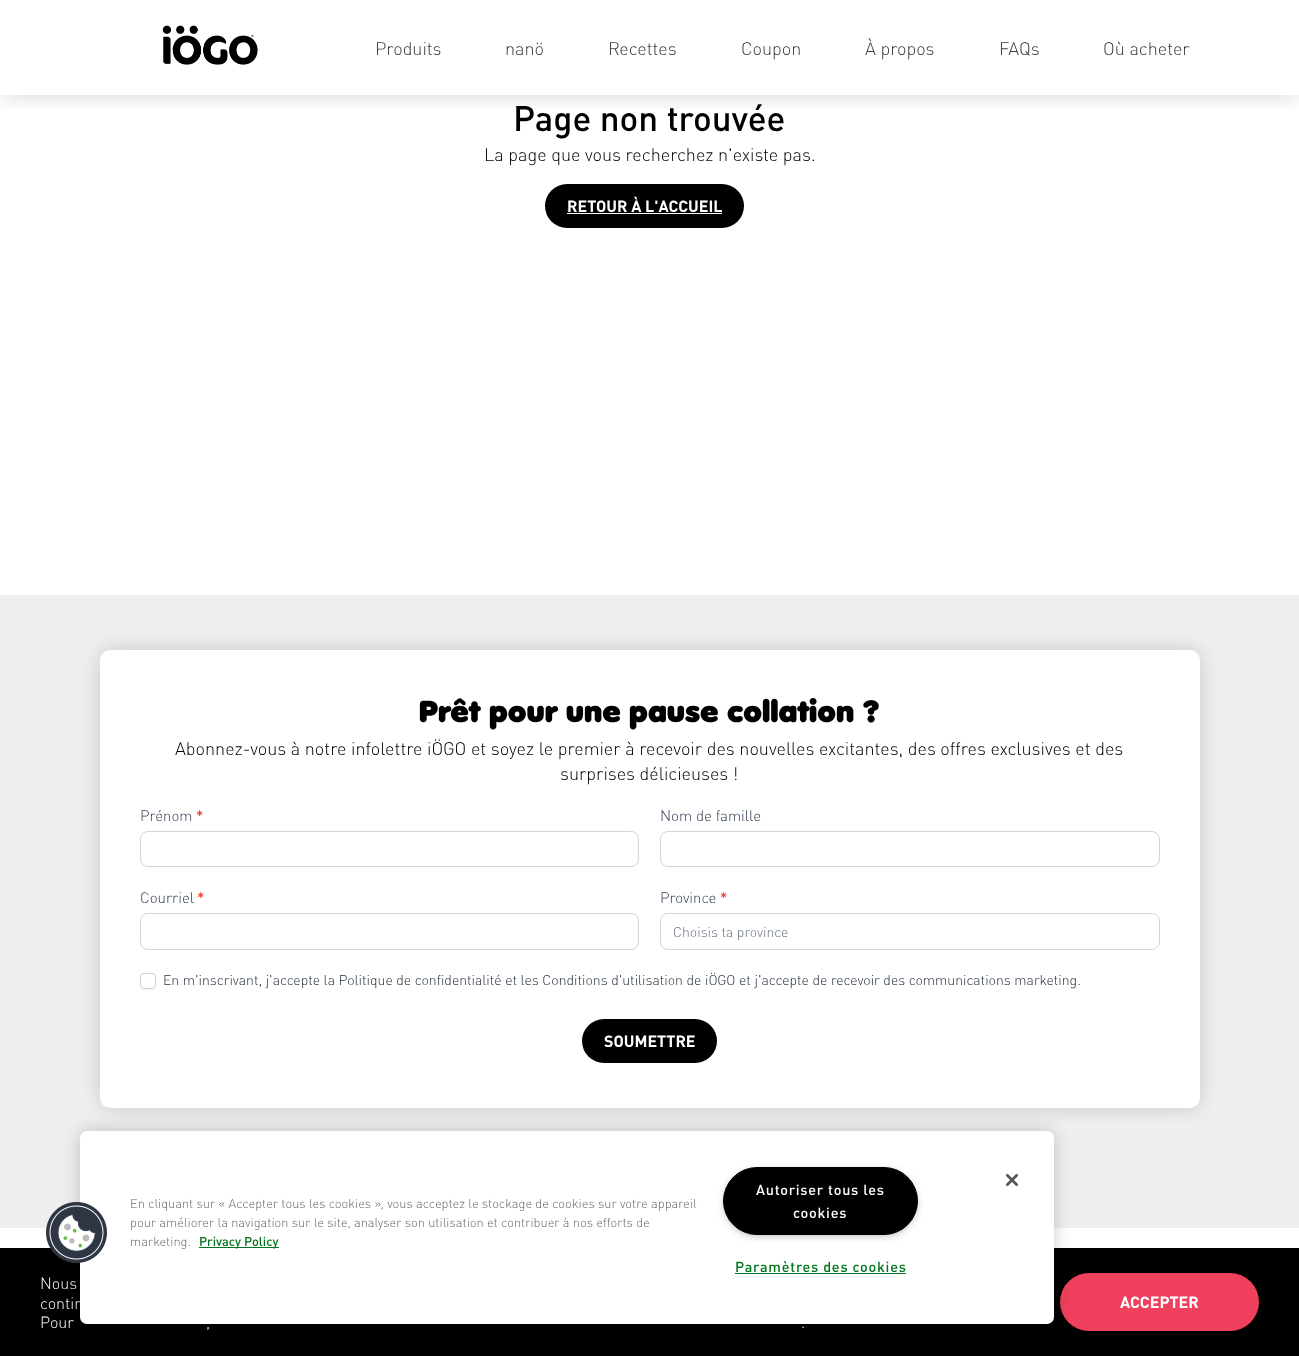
<svg xmlns="http://www.w3.org/2000/svg" width="1299" height="1356">
	<defs>
		<clipPath id="clip1"><rect x="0" y="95" width="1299" height="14" /></clipPath>
	</defs>
	<rect width="100%" height="100%" fill="#FFFFFF" />
	<g clip-path="url(#clip1)">
		<rect x="0" y="0" width="1299" height="95" fill="#000000" fill-opacity="0.16" filter="blur(12.5px)" />
	</g>
	<image x="162" y="25" width="96" height="40" href="assets/img1.png" />
	<g font-family="DIN" font-size="18" font-weight="300" fill="#3B3B3B">
		<text x="375" y="55">Produits</text>
		<text x="505" y="55">nanö</text>
		<text x="608" y="55">Recettes</text>
		<text x="741" y="55">Coupon</text>
		<text x="865" y="55">À propos</text>
		<text x="999" y="55">FAQs</text>
		<text x="1103" y="55">Où acheter</text>
	</g>
	<text x="513" y="131" font-family="DIN" font-size="35" font-weight="500" fill="#000000">Page non trouvée</text>
	<text x="484" y="161" font-family="DIN" font-size="18" font-weight="300" fill="#000000">La page que vous recherchez n'existe pas.</text>
	<rect x="545" y="184" width="199" height="44" rx="22" fill="#000000" />
	<text x="567" y="212" font-family="DIN" font-size="16" font-weight="700" fill="#FFFFFF">RETOUR À L'ACCUEIL</text>
	<rect x="567" y="213" width="155" height="1" fill="#FFFFFF" />
	<rect x="0" y="595" width="1299" height="528" fill="#EFEFEF" />
	<rect x="100" y="650" width="1100" height="458" rx="10" fill="#000000" fill-opacity="0.16" filter="blur(10px)" />
	<rect x="100" y="650" width="1100" height="458" rx="10" fill="#FFFFFF" />
	<text x="419" y="722" font-family="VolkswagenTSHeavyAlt" font-size="32" font-weight="900" fill="#000000">Prêt pour une pause collation ?</text>
	<g font-family="DIN" font-size="18" font-weight="300" fill="#000000">
		<text x="175" y="755">Abonnez-vous à notre infolettre iÖGO et soyez le premier à recevoir des nouvelles excitantes, des offres exclusives et des</text>
		<text x="560" y="780">surprises délicieuses !</text>
	</g>
	<text x="140" y="821" font-family="DIN" font-size="15" font-weight="300" fill="#344054">Prénom</text>
	<text x="196" y="821" font-family="DIN" font-size="15" font-weight="500" fill="#F04438">*</text>
	<rect x="140.5" y="831.5" width="498" height="35" rx="7.5" fill="none" stroke="#D0D5DD" />
	<text x="660" y="821" font-family="DIN" font-size="15" font-weight="300" fill="#344054">Nom de famille</text>
	<rect x="660.5" y="831.5" width="499" height="35" rx="7.5" fill="none" stroke="#D0D5DD" />
	<text x="140" y="903" font-family="DIN" font-size="15" font-weight="300" fill="#344054">Courriel</text>
	<text x="197" y="903" font-family="DIN" font-size="15" font-weight="500" fill="#F04438">*</text>
	<rect x="140.5" y="913.5" width="498" height="36" rx="7.5" fill="none" stroke="#D0D5DD" />
	<text x="660" y="903" font-family="DIN" font-size="15" font-weight="300" fill="#344054">Province</text>
	<text x="720" y="903" font-family="DIN" font-size="15" font-weight="500" fill="#F04438">*</text>
	<rect x="660.5" y="913.5" width="499" height="36" rx="7.5" fill="none" stroke="#D0D5DD" />
	<text x="673" y="937" font-family="DIN" font-size="14" font-weight="300" fill="#667085">Choisis ta province</text>
	<rect x="140" y="974" width="16" height="16" rx="4" fill="#121217" fill-opacity="0.05" filter="blur(1px)" />
	<rect x="140.5" y="973.5" width="15" height="15" rx="3.5" fill="#FFFFFF" stroke="#D0D5DD" />
	<text x="163" y="985" font-family="DIN" font-size="14" font-weight="300" fill="#1D2939">En m'inscrivant, j'accepte la Politique de confidentialité et les Conditions d'utilisation de iÖGO et j'accepte de recevoir des communications marketing.</text>
	<rect x="582" y="1019" width="135" height="44" rx="22" fill="#000000" />
	<text x="604" y="1047" font-family="DIN" font-size="16" font-weight="700" fill="#FFFFFF">SOUMETTRE</text>
	<rect x="0" y="1123" width="1299" height="105" fill="#EFEFEF" />
	<rect x="0" y="1248" width="1299" height="108" fill="#000000" />
	<g font-family="DIN" font-size="16" font-weight="300" fill="#FFFFFF">
		<text x="40" y="1289">Nous</text>
		<text x="40" y="1309">contin</text>
		<text x="40" y="1328">Pour</text>
		<text x="206" y="1328">,</text>
		<text x="801" y="1328">.</text>
	</g>
	<rect x="1060" y="1273" width="199" height="58" rx="29" fill="#EF405D" />
	<text x="1120" y="1308" font-family="DIN" font-size="16" font-weight="700" fill="#FFFFFF">ACCEPTER</text>
	<rect x="80" y="1131" width="974" height="193" rx="7" fill="#000000" fill-opacity="0.2" filter="blur(9px)" />
	<rect x="80" y="1131" width="974" height="193" rx="7" fill="#FFFFFF" />
	<image x="46" y="1202" width="61" height="61" href="assets/img2.png" />
	<image x="1006" y="1174" width="12" height="12" href="assets/img3.png" />
	<g font-family="DIN" font-size="12.8" font-weight="300" fill="#696969">
		<text x="130" y="1208">En cliquant sur « Accepter tous les cookies », vous acceptez le stockage de cookies sur votre appareil</text>
		<text x="130" y="1227">pour améliorer la navigation sur le site, analyser son utilisation et contribuer à nos efforts de</text>
		<text x="130" y="1246">marketing.</text>
	</g>
	<rect x="199" y="1247" width="80" height="1" fill="#02741E" />
	<text x="199" y="1246" font-family="DIN" font-size="12.8" font-weight="500" fill="#02741E">Privacy Policy</text>
	<rect x="726" y="1172" width="189" height="62" rx="31" fill="#999999" filter="blur(5px)" />
	<rect x="723.5" y="1167.5" width="194" height="67" rx="33.5" fill="#000000" stroke="#000000" />
	<g font-family="DIN" font-size="14.4" font-weight="500" letter-spacing="0.75" fill="#FFFFFF">
		<text x="756" y="1195">Autoriser tous les</text>
		<text x="793" y="1218">cookies</text>
	</g>
	<text x="735" y="1272" font-family="DIN" font-size="14.4" font-weight="500" letter-spacing="0.75" fill="#02741E">Paramètres des cookies</text>
	<rect x="735" y="1273" width="171" height="1" fill="#02741E" />
</svg>
